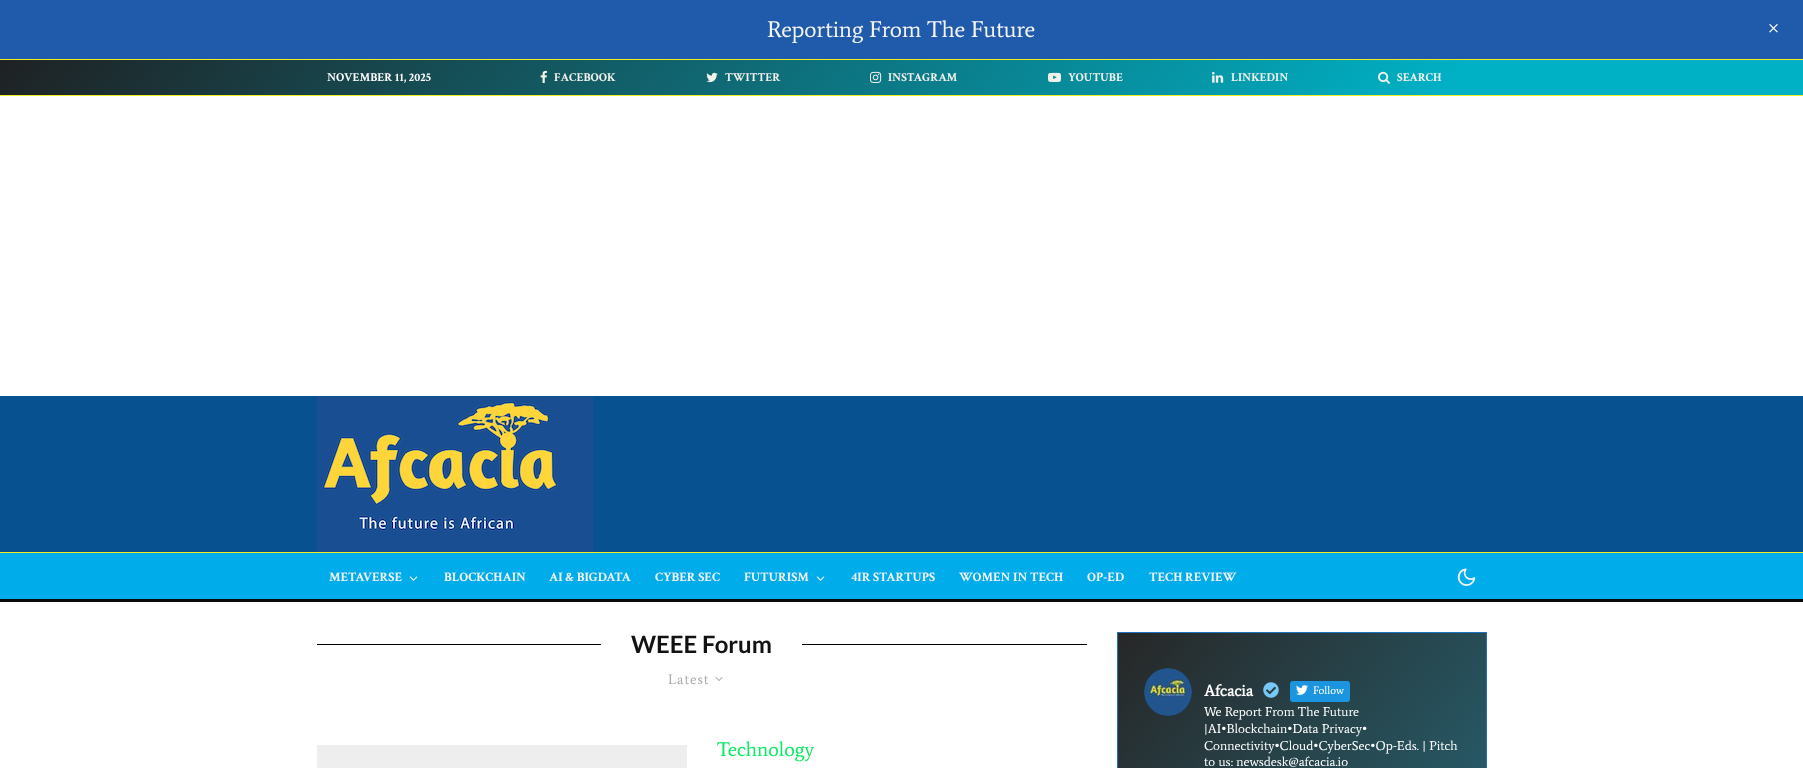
<svg xmlns="http://www.w3.org/2000/svg" width="1803" height="768">
	<defs>
		<linearGradient id="g1" gradientUnits="userSpaceOnUse" x1="364" y1="-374" x2="1439" y2="529"><stop offset="0" stop-color="#1F2123" /><stop offset="0.8" stop-color="#00B0C4" /></linearGradient>
		<linearGradient id="g2" gradientUnits="userSpaceOnUse" x1="736" y1="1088" x2="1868" y2="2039"><stop offset="0" stop-color="#272727" /><stop offset="0.8" stop-color="#25C5ED" /></linearGradient>
	</defs>
	<rect width="100%" height="100%" fill="#FFFFFF" />
	<rect x="0" y="0" width="1803" height="59" fill="#205AAA" />
	<text x="767" y="37" font-family="Average" font-size="23" fill="#F4F4F4">Reporting From The Future</text>
	<image x="1769" y="24" width="9" height="9" href="assets/img1.png" />
	<rect x="0" y="60" width="1803" height="35" fill="url(#g1)" />
	<rect x="0" y="59" width="1803" height="1" fill="#EEEE22" />
	<rect x="0" y="95" width="1803" height="1" fill="#EEEE22" />
	<text x="327" y="81" font-family="Crimson Text" font-size="12" font-weight="700" fill="#FFFFFF">NOVEMBER 11, 2025</text>
	<image x="540" y="70" width="7" height="13" href="assets/img2.png" />
	<text x="554" y="81" font-family="Crimson Text" font-size="12" font-weight="700" fill="#F2F2EB">FACEBOOK</text>
	<image x="706" y="72" width="12" height="11" href="assets/img3.png" />
	<text x="725" y="81" font-family="Crimson Text" font-size="12" font-weight="700" fill="#F2F2EB">TWITTER</text>
	<image x="870" y="71" width="12" height="12" href="assets/img4.png" />
	<text x="888" y="81" font-family="Crimson Text" font-size="12" font-weight="700" fill="#F2F2EB">INSTAGRAM</text>
	<image x="1048" y="72" width="13" height="10" href="assets/img5.png" />
	<text x="1068" y="81" font-family="Crimson Text" font-size="12" font-weight="700" fill="#F2F2EB">YOUTUBE</text>
	<image x="1212" y="72" width="12" height="11" href="assets/img6.png" />
	<text x="1231" y="81" font-family="Crimson Text" font-size="12" font-weight="700" fill="#F2F2EB">LINKEDIN</text>
	<image x="1378" y="71" width="12" height="13" href="assets/img7.png" />
	<text x="1397" y="81" font-family="Crimson Text" font-size="12" font-weight="700" fill="#F2F2EB">SEARCH</text>
	<rect x="0" y="396" width="1803" height="156" fill="#085191" />
	<image x="317" y="396" width="276" height="156" href="assets/img8.png" />
	<rect x="0" y="553" width="1803" height="46" fill="#00ACEA" />
	<rect x="0" y="552" width="1803" height="1" fill="#EEEE22" />
	<rect x="0" y="599" width="1803" height="3" fill="#0A0A0A" />
	<text x="329" y="581" font-family="Crimson Text" font-size="13" font-weight="700" fill="#F4F4F4">METAVERSE</text>
	<image x="409" y="576" width="9" height="5" href="assets/img9.png" />
	<g font-family="Crimson Text" font-size="13" font-weight="700" fill="#F4F4F4">
		<text x="444" y="581">BLOCKCHAIN</text>
		<text x="549" y="581">AI &amp; BIGDATA</text>
		<text x="655" y="581">CYBER SEC</text>
		<text x="744" y="581">FUTURISM</text>
	</g>
	<image x="816" y="576" width="9" height="5" href="assets/img9.png" />
	<g font-family="Crimson Text" font-size="13" font-weight="700" fill="#F4F4F4">
		<text x="851" y="581">4IR STARTUPS</text>
		<text x="959" y="581">WOMEN IN TECH</text>
		<text x="1087" y="581">OP-ED</text>
		<text x="1149" y="581">TECH REVIEW</text>
	</g>
	<image x="1457" y="568" width="19" height="18" href="assets/img10.png" />
	<rect x="317" y="644" width="284" height="1" fill="#000000" />
	<text x="631" y="653" font-family="Lato" font-size="24" font-weight="700" fill="#121212">WEEE Forum</text>
	<rect x="802" y="644" width="285" height="1" fill="#000000" />
	<text x="668" y="684" font-family="Average" font-size="14" letter-spacing="1" fill="#AAAAAA">Latest</text>
	<image x="715" y="677" width="8" height="4" href="assets/img11.png" />
	<rect x="317" y="745" width="370" height="23" fill="#EEEEEE" />
	<text x="717" y="756" font-family="Average" font-size="20" fill="#09EB60">Technology</text>
	<rect x="1118" y="633" width="368" height="135" fill="url(#g2)" />
	<rect x="1117.5" y="632.5" width="369" height="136" fill="none" stroke="#1E73BE" />
	<image x="1144" y="668" width="48" height="48" href="assets/img12.png" />
	<text x="1204" y="696" font-family="Average" font-size="16" font-weight="700" fill="#FFFFFF">Afcacia</text>
	<image x="1263" y="682" width="16" height="16" href="assets/img13.png" />
	<rect x="1290" y="681" width="60" height="21" rx="3" fill="#1B95E0" />
	<image x="1296" y="685" width="12" height="10" href="assets/img14.png" />
	<text x="1313" y="694" font-family="Average" font-size="11" fill="#FFFFFF">Follow</text>
	<g font-family="Average" font-size="13" fill="#FFFFFF">
		<text x="1204" y="716">We Report From The Future</text>
		<text x="1204" y="733">|AI•Blockchain•Data Privacy•</text>
		<text x="1204" y="750">Connectivity•Cloud•CyberSec•Op-Eds. | Pitch</text>
		<text x="1204" y="766">to us: newsdesk@afcacia.io</text>
	</g>
</svg>
